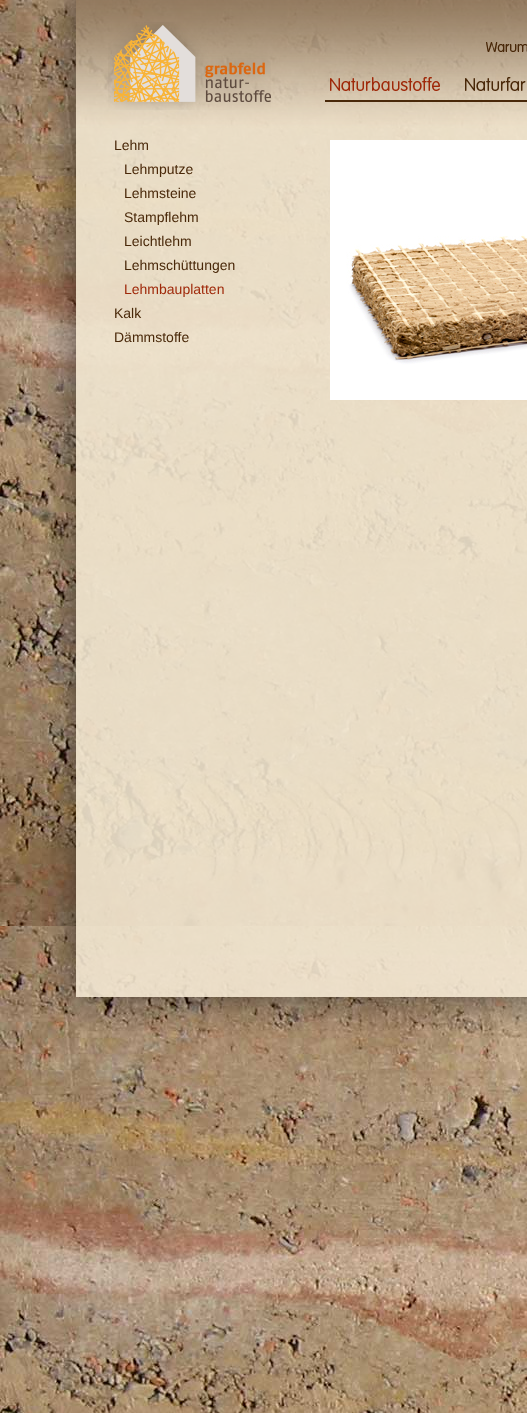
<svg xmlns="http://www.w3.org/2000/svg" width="527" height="1413">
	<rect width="100%" height="100%" fill="#FFFFFF" />
	<image x="0" y="0" width="527" height="1413" href="assets/img1.png" />
	<image x="42" y="0" width="485" height="130" href="assets/img2.png" />
	<image x="108" y="22" width="163" height="88" href="assets/img3.png" />
	<image x="486" y="42" width="41" height="10" href="assets/img4.png" />
	<image x="330" y="77" width="110" height="14" href="assets/img5.png" />
	<image x="465" y="77" width="61" height="14" href="assets/img6.png" />
	<rect x="325" y="100" width="202" height="2" fill="#492809" />
	<image x="42" y="130" width="485" height="825" href="assets/img7.png" />
	<g font-family="Liberation Sans" font-size="14" fill="#492809">
		<text x="114" y="150">Lehm</text>
		<text x="124" y="174">Lehmputze</text>
		<text x="124" y="198">Lehmsteine</text>
		<text x="124" y="222">Stampflehm</text>
		<text x="124" y="246">Leichtlehm</text>
		<text x="124" y="270">Lehmschüttungen</text>
	</g>
	<text x="124" y="294" font-family="Liberation Sans" font-size="14" fill="#9F2809">Lehmbauplatten</text>
	<g font-family="Liberation Sans" font-size="14" fill="#492809">
		<text x="114" y="318">Kalk</text>
		<text x="114" y="342">Dämmstoffe</text>
	</g>
	<image x="330" y="140" width="197" height="260" href="assets/img8.png" />
	<image x="42" y="955" width="485" height="76" href="assets/img9.png" />
</svg>
